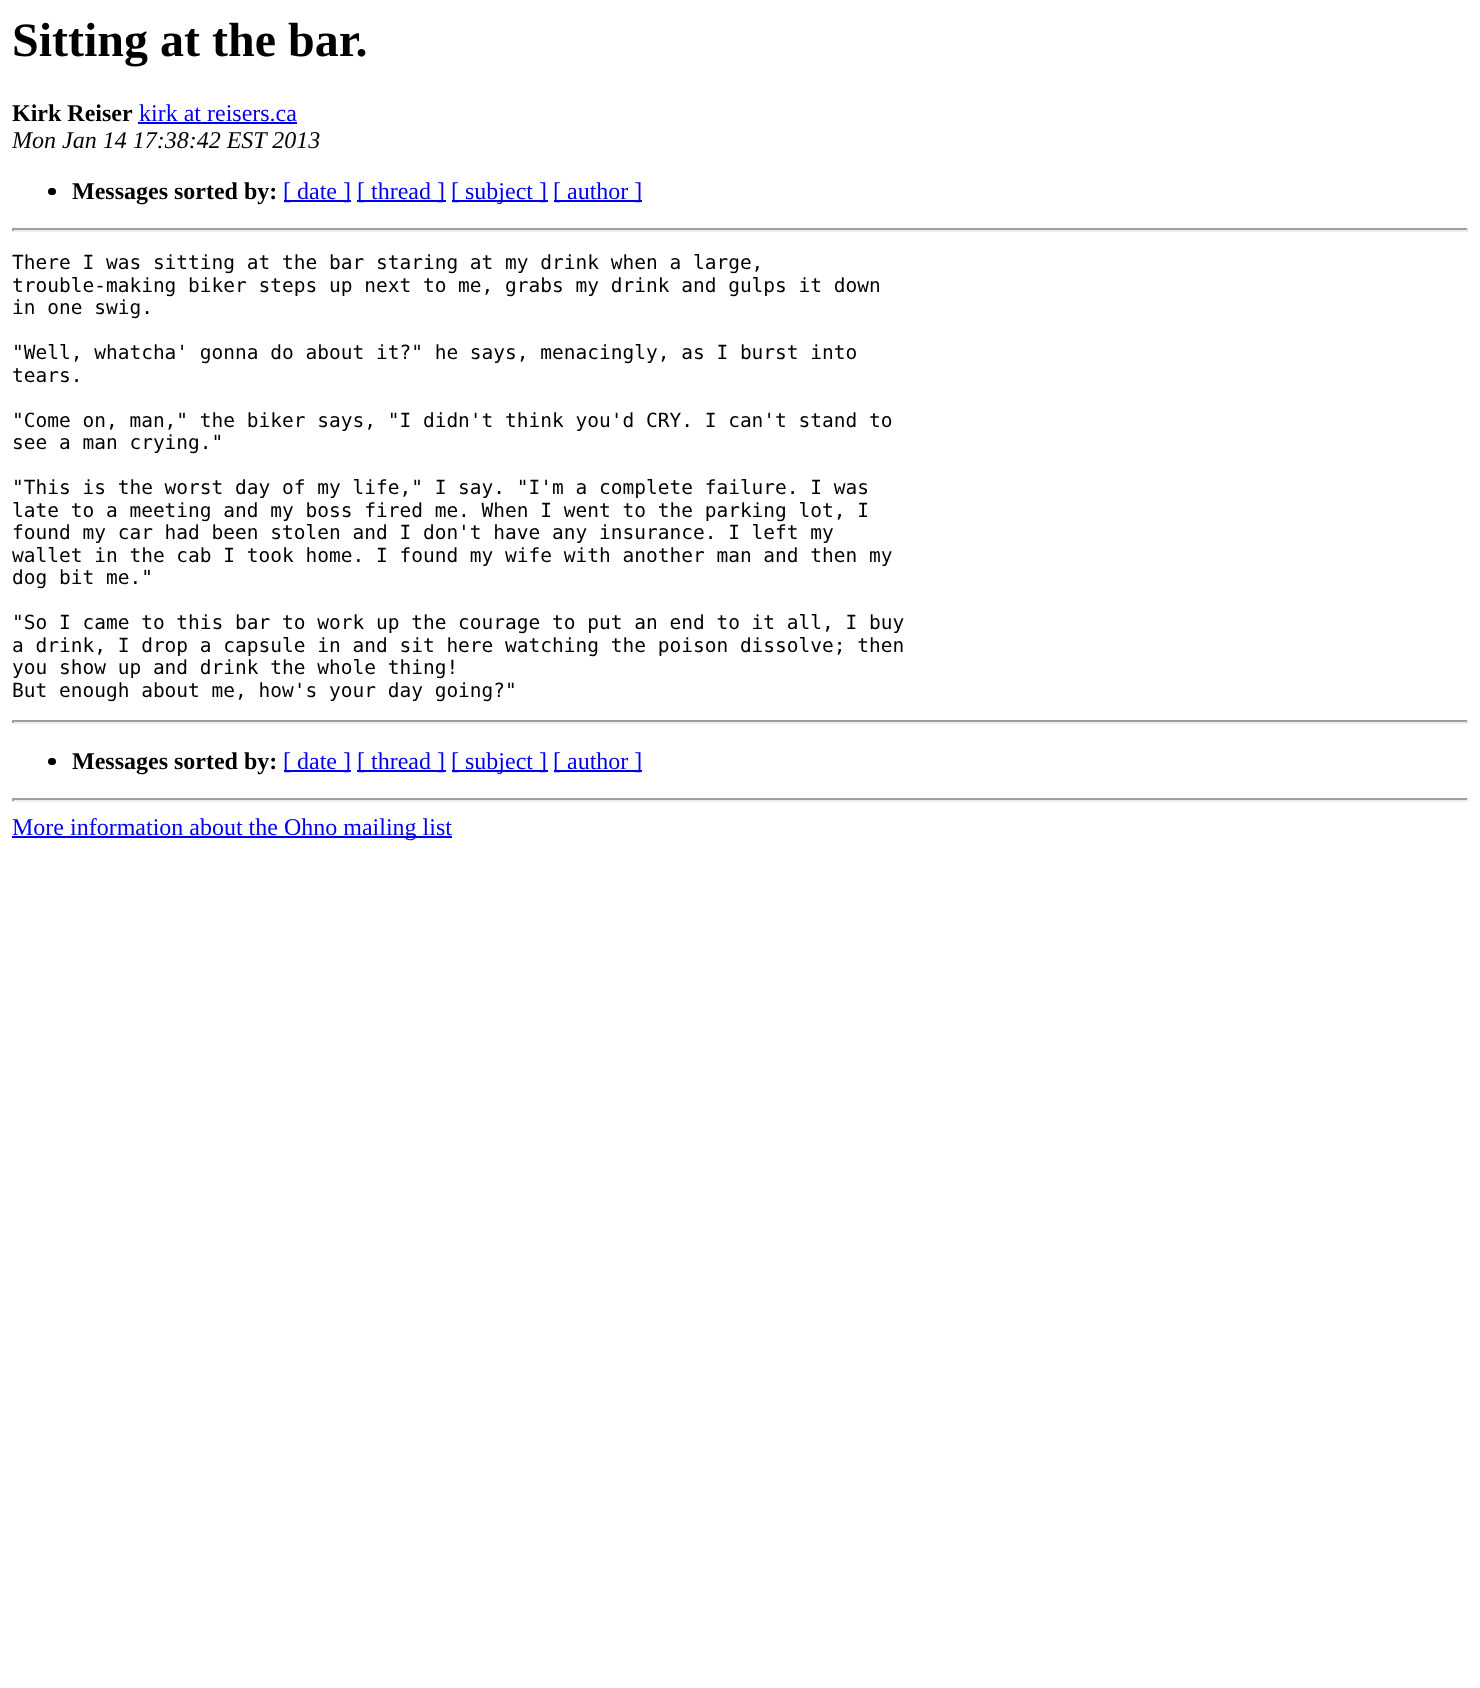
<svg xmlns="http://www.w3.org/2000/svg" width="1480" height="1688">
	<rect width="100%" height="100%" fill="#FFFFFF" />
	<text x="12" y="56" font-family="Liberation Serif" font-size="48" font-weight="700" fill="#000000">Sitting at the bar.</text>
	<text x="12" y="121" font-family="Liberation Serif" font-size="24" font-weight="700" fill="#000000">Kirk Reiser</text>
	<text x="139" y="121" font-family="Liberation Serif" font-size="24" fill="#0000EE">kirk at reisers.ca</text>
	<rect x="138" y="122" width="159" height="2" fill="#0000EE" />
	<text x="12" y="148" font-family="Liberation Serif" font-size="24" font-style="italic" fill="#000000">Mon Jan 14 17:38:42 EST 2013</text>
	<rect x="48" y="188" width="8" height="7" rx="3.5" fill="#000000" />
	<text x="72" y="199" font-family="Liberation Serif" font-size="24" font-weight="700" fill="#000000">Messages sorted by:</text>
	<rect x="284" y="200" width="67" height="2" fill="#0000EE" />
	<text x="283" y="199" font-family="Liberation Serif" font-size="24" fill="#0000EE">[ date ]</text>
	<rect x="357" y="200" width="89" height="2" fill="#0000EE" />
	<text x="357" y="199" font-family="Liberation Serif" font-size="24" fill="#0000EE">[ thread ]</text>
	<rect x="452" y="200" width="96" height="2" fill="#0000EE" />
	<text x="451" y="199" font-family="Liberation Serif" font-size="24" fill="#0000EE">[ subject ]</text>
	<rect x="554" y="200" width="88" height="2" fill="#0000EE" />
	<text x="553" y="199" font-family="Liberation Serif" font-size="24" fill="#0000EE">[ author ]</text>
	<rect x="12" y="228" width="1457" height="2" fill="#9F9F9F" />
	<rect x="1467" y="228" width="2" height="3" fill="#EEEEEE" />
	<rect x="12" y="230" width="1457" height="2" fill="#EEEEEE" />
	<rect x="12" y="228" width="2" height="3" fill="#9F9F9F" />
	<g font-family="DejaVu Sans Mono" font-size="19.5" fill="#000000">
		<text x="12" y="269">There I was sitting at the bar staring at my drink when a large,</text>
		<text x="12" y="292">trouble-making biker steps up next to me, grabs my drink and gulps it down</text>
		<text x="12" y="314">in one swig.</text>
		<text x="12" y="359">"Well, whatcha' gonna do about it?" he says, menacingly, as I burst into</text>
		<text x="12" y="382">tears.</text>
		<text x="12" y="427">"Come on, man," the biker says, "I didn't think you'd CRY. I can't stand to</text>
		<text x="12" y="449">see a man crying."</text>
		<text x="12" y="494">"This is the worst day of my life," I say. "I'm a complete failure. I was</text>
		<text x="12" y="517">late to a meeting and my boss fired me. When I went to the parking lot, I</text>
		<text x="12" y="539">found my car had been stolen and I don't have any insurance. I left my</text>
		<text x="12" y="562">wallet in the cab I took home. I found my wife with another man and then my</text>
		<text x="12" y="584">dog bit me."</text>
		<text x="12" y="629">"So I came to this bar to work up the courage to put an end to it all, I buy</text>
		<text x="12" y="652">a drink, I drop a capsule in and sit here watching the poison dissolve; then</text>
		<text x="12" y="674">you show up and drink the whole thing!</text>
		<text x="12" y="697">But enough about me, how's your day going?"</text>
	</g>
	<rect x="12" y="720" width="1457" height="2" fill="#9F9F9F" />
	<rect x="1467" y="720" width="2" height="3" fill="#EEEEEE" />
	<rect x="12" y="722" width="1457" height="2" fill="#EEEEEE" />
	<rect x="12" y="720" width="2" height="3" fill="#9F9F9F" />
	<rect x="48" y="758" width="8" height="7" rx="3.5" fill="#000000" />
	<text x="72" y="769" font-family="Liberation Serif" font-size="24" font-weight="700" fill="#000000">Messages sorted by:</text>
	<rect x="284" y="770" width="67" height="2" fill="#0000EE" />
	<text x="283" y="769" font-family="Liberation Serif" font-size="24" fill="#0000EE">[ date ]</text>
	<rect x="357" y="770" width="89" height="2" fill="#0000EE" />
	<text x="357" y="769" font-family="Liberation Serif" font-size="24" fill="#0000EE">[ thread ]</text>
	<rect x="452" y="770" width="96" height="2" fill="#0000EE" />
	<text x="451" y="769" font-family="Liberation Serif" font-size="24" fill="#0000EE">[ subject ]</text>
	<rect x="554" y="770" width="88" height="2" fill="#0000EE" />
	<text x="553" y="769" font-family="Liberation Serif" font-size="24" fill="#0000EE">[ author ]</text>
	<rect x="12" y="798" width="1457" height="2" fill="#9F9F9F" />
	<rect x="1467" y="798" width="2" height="3" fill="#EEEEEE" />
	<rect x="12" y="800" width="1457" height="2" fill="#EEEEEE" />
	<rect x="12" y="798" width="2" height="3" fill="#9F9F9F" />
	<rect x="12" y="836" width="440" height="2" fill="#0000EE" />
	<text x="12" y="835" font-family="Liberation Serif" font-size="24" fill="#0000EE">More information about the Ohno mailing list</text>
</svg>
